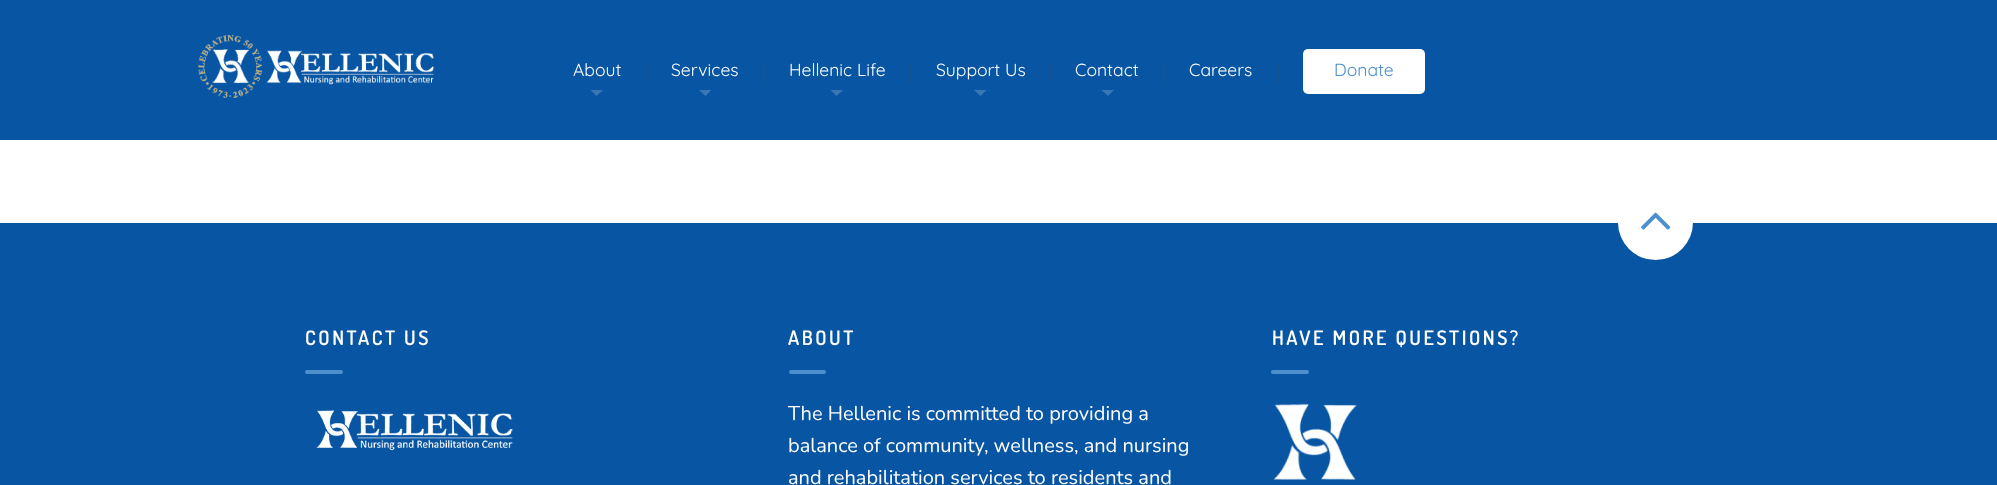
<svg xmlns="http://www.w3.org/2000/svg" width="1997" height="485">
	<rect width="100%" height="100%" fill="#FFFFFF" />
	<rect x="0" y="0" width="1997" height="140" fill="#0755A3" />
	<image x="198" y="35" width="236" height="63" href="assets/img1.png" />
	<text x="573" y="76" font-family="Quicksand" font-size="17.5" fill="#FFFFFF">About</text>
	<path d="M590.5 90H603L596.5 96Z" fill="#3977B5" />
	<rect x="646" y="63" width="1" height="20" fill="#155495" />
	<text x="671" y="76" font-family="Quicksand" font-size="17.5" fill="#FFFFFF">Services</text>
	<path d="M699 90H711.5L705.5 96Z" fill="#3977B5" />
	<rect x="764" y="63" width="1" height="20" fill="#155495" />
	<text x="789" y="76" font-family="Quicksand" font-size="17.5" fill="#FFFFFF">Hellenic Life</text>
	<path d="M830.5 90H843L836.5 96Z" fill="#3977B5" />
	<rect x="910" y="63" width="1" height="20" fill="#155495" />
	<text x="936" y="76" font-family="Quicksand" font-size="17.5" fill="#FFFFFF">Support Us</text>
	<path d="M974 90H986.5L980.5 96Z" fill="#3977B5" />
	<rect x="1050" y="63" width="1" height="20" fill="#155495" />
	<text x="1075" y="76" font-family="Quicksand" font-size="17.5" fill="#FFFFFF">Contact</text>
	<path d="M1101.5 90H1114L1108 96Z" fill="#3977B5" />
	<rect x="1164" y="63" width="1" height="20" fill="#155495" />
	<text x="1189" y="76" font-family="Quicksand" font-size="17.5" fill="#FFFFFF">Careers</text>
	<rect x="1278" y="63" width="1" height="20" fill="#155495" />
	<rect x="1303" y="49" width="122" height="45" rx="5" fill="#FFFFFF" />
	<text x="1334" y="76" font-family="Quicksand" font-size="17.5" fill="#4C8FCC">Donate</text>
	<rect x="0" y="223" width="1997" height="262" fill="#0755A3" />
	<circle cx="1655.5" cy="222.5" r="37.5" fill="#FFFFFF" />
	<image x="1641" y="212" width="30" height="18" href="assets/img2.png" />
	<text x="305" y="345" font-family="Dosis" font-size="20" font-weight="600" letter-spacing="2.5" fill="#FFFFFF">CONTACT US</text>
	<rect x="305" y="370" width="38" height="4" rx="2" fill="#4C8FCC" />
	<image x="316" y="410" width="197" height="41" href="assets/img3.png" />
	<text x="788" y="345" font-family="Dosis" font-size="20" font-weight="600" letter-spacing="2.5" fill="#FFFFFF">ABOUT</text>
	<rect x="789" y="370" width="37" height="4" rx="2" fill="#4C8FCC" />
	<g font-family="Nunito" font-size="20" fill="#FFFFFF">
		<text x="788" y="420">The Hellenic is committed to providing a</text>
		<text x="788" y="452">balance of community, wellness, and nursing</text>
		<text x="788" y="484">and rehabilitation services to residents and</text>
	</g>
	<text x="1272" y="345" font-family="Dosis" font-size="20" font-weight="600" letter-spacing="2.5" fill="#FFFFFF">HAVE MORE QUESTIONS?</text>
	<rect x="1271" y="370" width="38" height="4" rx="2" fill="#4C8FCC" />
	<image x="1273" y="403" width="84" height="77" href="assets/img4.png" />
</svg>
